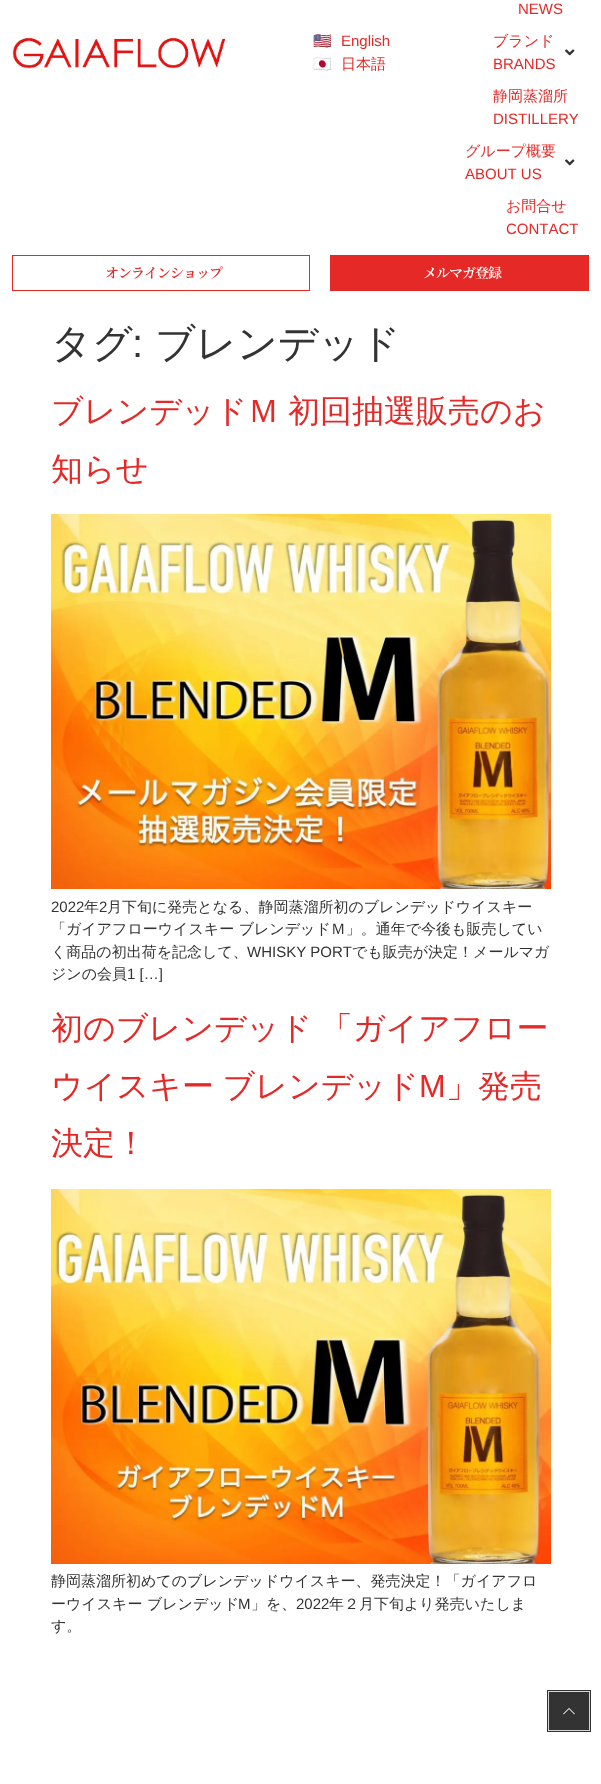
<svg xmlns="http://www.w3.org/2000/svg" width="601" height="1784">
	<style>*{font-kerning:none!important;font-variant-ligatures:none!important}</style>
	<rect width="100%" height="100%" fill="#FFFFFF" />
	<image x="12" y="37" width="214" height="32" href="assets/img1.png" />
	<text x="313" y="46" font-family="Noto Color Emoji" font-size="15" fill="#333333">🇺🇸</text>
	<text x="341" y="46" font-family="Liberation Sans" font-size="15" fill="#E42927">English</text>
	<text x="313" y="69" font-family="Noto Color Emoji" font-size="15" fill="#333333">🇯🇵</text>
	<text x="341" y="69" font-family="WenQuanYi Zen Hei" font-size="15" font-weight="500" fill="#E42927">日本語</text>
	<text x="518" y="14" font-family="Liberation Sans" font-size="15" fill="#E42927">NEWS</text>
	<text x="493" y="46" font-family="WenQuanYi Zen Hei" font-size="15" font-weight="500" fill="#E42927">ブランド</text>
	<text x="493" y="69" font-family="Liberation Sans" font-size="15" fill="#E42927">BRANDS</text>
	<image x="565" y="49" width="10" height="7" href="assets/img2.png" />
	<text x="493" y="101" font-family="WenQuanYi Zen Hei" font-size="15" font-weight="500" fill="#E42927">静岡蒸溜所</text>
	<text x="493" y="124" font-family="Liberation Sans" font-size="15" fill="#E42927">DISTILLERY</text>
	<text x="465" y="156" font-family="WenQuanYi Zen Hei" font-size="15" font-weight="500" fill="#E42927">グループ概要</text>
	<text x="465" y="179" font-family="Liberation Sans" font-size="15" fill="#E42927">ABOUT US</text>
	<image x="565" y="159" width="10" height="7" href="assets/img2.png" />
	<text x="506" y="211" font-family="WenQuanYi Zen Hei" font-size="15" font-weight="500" fill="#E42927">お問合せ</text>
	<text x="506" y="234" font-family="Liberation Sans" font-size="15" fill="#E42927">CONTACT</text>
	<rect x="12.5" y="255.5" width="297" height="35" fill="none" stroke="#E42927" />
	<text x="105" y="278" font-family="Noto Serif JP" font-size="14" font-weight="600" letter-spacing="-1" fill="#E42927">オンラインショップ</text>
	<rect x="330" y="255" width="259" height="36" fill="#E42927" />
	<text x="423" y="278" font-family="Noto Serif JP" font-size="14" font-weight="600" letter-spacing="-1" fill="#FFFFFF">メルマガ登録</text>
	<text x="51" y="357" font-family="WenQuanYi Zen Hei" font-size="40" font-weight="500" fill="#333333">タグ</text>
	<text x="132" y="357" font-family="Liberation Sans" font-size="40" fill="#333333">:</text>
	<text x="155" y="357" font-family="WenQuanYi Zen Hei" font-size="40" font-weight="500" fill="#333333">ブレンデッド</text>
	<g font-family="WenQuanYi Zen Hei" font-size="32" font-weight="500" fill="#E42927">
		<text x="51" y="422" word-spacing="-1">ブレンデッドＭ 初回抽選販売のお</text>
		<text x="51" y="480">知らせ</text>
	</g>
	<image x="51" y="514" width="500" height="375" href="assets/img3.png" />
	<text x="51" y="912" font-family="Liberation Sans" font-size="15" fill="#333333">2022</text>
	<text x="84" y="912" font-family="WenQuanYi Zen Hei" font-size="15" font-weight="500" fill="#333333">年</text>
	<text x="99" y="912" font-family="Liberation Sans" font-size="15" fill="#333333">2</text>
	<g font-family="WenQuanYi Zen Hei" font-size="15" font-weight="500" fill="#333333">
		<text x="107" y="912">月下旬に発売となる、静岡蒸溜所初のブレンデッドウイスキー</text>
		<text x="51" y="934">「ガイアフローウイスキー ブレンデッドＭ」。通年で今後も販売してい</text>
		<text x="51" y="957">く商品の初出荷を記念して、</text>
	</g>
	<text x="247" y="957" font-family="Liberation Sans" font-size="15" fill="#333333">WHISKY PORT</text>
	<g font-family="WenQuanYi Zen Hei" font-size="15" font-weight="500" fill="#333333">
		<text x="352" y="957">でも販売が決定！メールマガ</text>
		<text x="51" y="979">ジンの会員</text>
	</g>
	<text x="127" y="979" font-family="Liberation Sans" font-size="15" fill="#333333">1 […]</text>
	<g font-family="WenQuanYi Zen Hei" font-size="32" font-weight="500" fill="#E42927">
		<text x="51" y="1039" word-spacing="-1">初のブレンデッド 「ガイアフロー</text>
		<text x="51" y="1097" word-spacing="-1">ウイスキー ブレンデッド</text>
	</g>
	<text x="419" y="1097" font-family="Liberation Sans" font-size="32" fill="#E42927">M</text>
	<g font-family="WenQuanYi Zen Hei" font-size="32" font-weight="500" fill="#E42927">
		<text x="446" y="1097">」発売</text>
		<text x="51" y="1154">決定！</text>
	</g>
	<image x="51" y="1189" width="500" height="375" href="assets/img4.png" />
	<g font-family="WenQuanYi Zen Hei" font-size="15" font-weight="500" fill="#333333">
		<text x="51" y="1586">静岡蒸溜所初めてのブレンデッドウイスキー、発売決定！「ガイアフロ</text>
		<text x="51" y="1609">ーウイスキー ブレンデッド</text>
	</g>
	<text x="238" y="1609" font-family="Liberation Sans" font-size="15" fill="#333333">M</text>
	<text x="251" y="1609" font-family="WenQuanYi Zen Hei" font-size="15" font-weight="500" fill="#333333">」を、</text>
	<text x="296" y="1609" font-family="Liberation Sans" font-size="15" fill="#333333">2022</text>
	<g font-family="WenQuanYi Zen Hei" font-size="15" font-weight="500" fill="#333333">
		<text x="329" y="1609">年２月下旬より発売いたしま</text>
		<text x="51" y="1631">す。</text>
	</g>
	<rect x="548" y="1691" width="42" height="40" fill="none" stroke="#333333" stroke-width="2" />
	<rect x="548.5" y="1691.5" width="41" height="39" fill="none" stroke="#D6D6D6" />
	<rect x="549" y="1692" width="40" height="38" fill="#333333" />
	<image x="563" y="1708" width="12" height="7" href="assets/img5.png" />
</svg>
